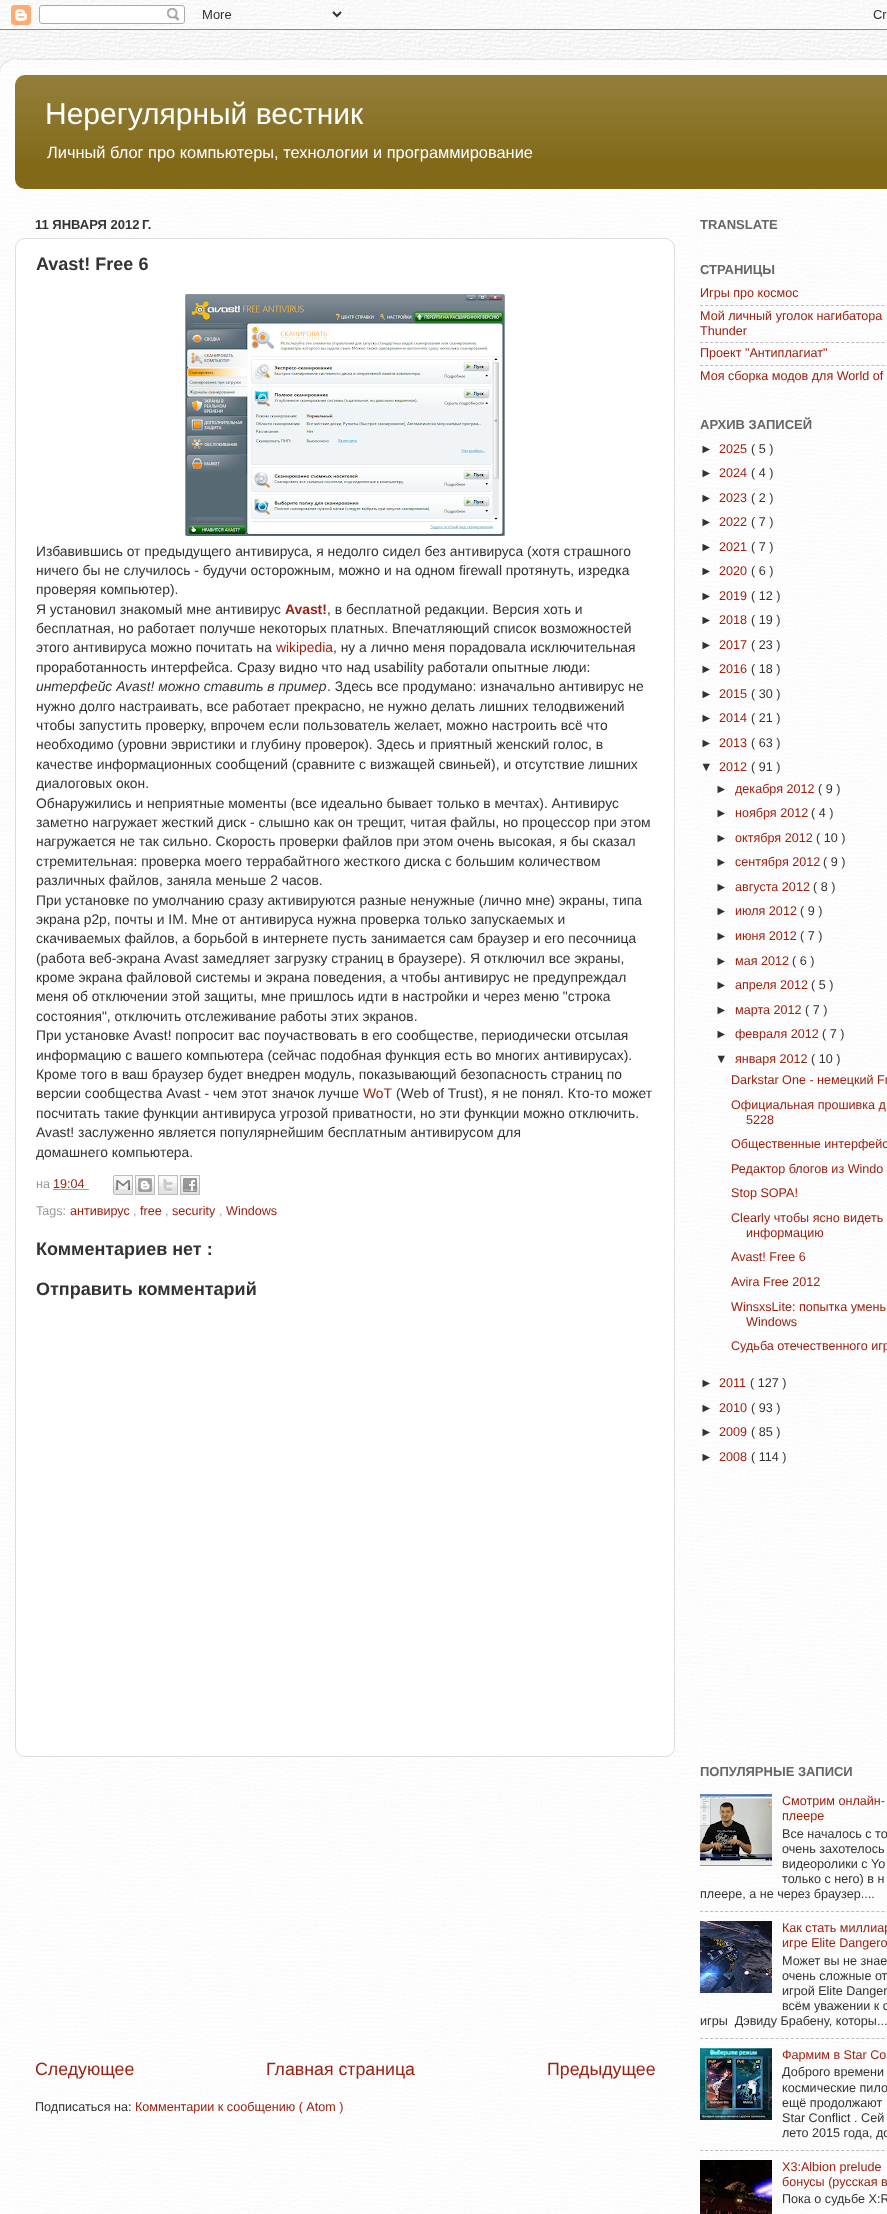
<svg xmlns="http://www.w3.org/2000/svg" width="887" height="2214">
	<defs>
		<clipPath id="clip1"><path d="M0 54H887V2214H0ZM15 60H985C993.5 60 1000 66.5 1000 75V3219C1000 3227.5 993.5 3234 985 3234H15C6.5 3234 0 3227.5 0 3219V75C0 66.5 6.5 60 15 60Z" clip-rule="evenodd" /></clipPath>
	</defs>
	<rect width="100%" height="100%" fill="#FFFFFF" />
	<image x="0" y="0" width="887" height="2214" href="assets/img1.png" />
	<image x="0" y="0" width="887" height="30" href="assets/img2.png" />
	<g clip-path="url(#clip1)">
		<rect x="0" y="60" width="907" height="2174" rx="15" fill="#000000" fill-opacity="0.15" filter="blur(1.5px)" />
	</g>
	<image x="0" y="60" width="887" height="2154" href="assets/img3.png" />
	<rect x="15" y="75" width="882" height="114" rx="10" fill="#816918" />
	<image x="15" y="75" width="872" height="84" href="assets/img4.png" />
	<text x="45" y="124" font-family="Liberation Sans" font-size="30" fill="#FFFFFF">Нерегулярный вестник</text>
	<text x="47" y="158" font-family="Liberation Sans" font-size="16.4" fill="#FFFFFF">Личный блог про компьютеры, технологии и программирование</text>
	<text x="35" y="229" font-family="Liberation Sans" font-size="13" font-weight="700" fill="#333333">11 ЯНВАРЯ 2012 Г.</text>
	<rect x="15.5" y="238.5" width="659" height="1518" rx="9.5" fill="#FFFFFF" stroke="#DDDDDD" />
	<text x="36" y="270" font-family="Liberation Sans" font-size="18" font-weight="700" fill="#333333">Avast! Free 6</text>
	<image x="185" y="294" width="320" height="242" href="assets/img5.png" />
	<g font-family="Liberation Sans" font-size="13.85" fill="#333333">
		<text x="36" y="556">Избавившись от предыдущего антивируса, я недолго сидел без антивируса (хотя страшного</text>
		<text x="36" y="575">ничего бы не случилось - будучи осторожным, можно и на одном firewall протянуть, изредка</text>
		<text x="36" y="594">проверяя компьютер).</text>
		<text x="36" y="614">Я установил знакомый мне антивирус</text>
	</g>
	<text x="285" y="614" font-family="Liberation Sans" font-size="13.85" font-weight="700" fill="#992211">Avast!</text>
	<g font-family="Liberation Sans" font-size="13.85" fill="#333333">
		<text x="327" y="614">, в бесплатной редакции. Версия хоть и</text>
		<text x="36" y="633">бесплатная, но работает получше некоторых платных. Впечатляющий список возможностей</text>
		<text x="36" y="652">этого антивируса можно почитать на</text>
	</g>
	<text x="276" y="652" font-family="Liberation Sans" font-size="13.85" fill="#992211">wikipedia</text>
	<g font-family="Liberation Sans" font-size="13.85" fill="#333333">
		<text x="333" y="652">, ну а лично меня порадовала исключительная</text>
		<text x="36" y="672">проработанность интерфейса. Сразу видно что над usability работали опытные люди:</text>
	</g>
	<text x="36" y="691" font-family="Liberation Sans" font-size="13.85" font-style="italic" fill="#333333">интерфейс Avast! можно ставить в пример</text>
	<g font-family="Liberation Sans" font-size="13.85" fill="#333333">
		<text x="327" y="691">. Здесь все продумано: изначально антивирус не</text>
		<text x="36" y="711">нужно долго настраивать, все работает прекрасно, не нужно делать лишних телодвижений</text>
		<text x="36" y="730">чтобы запустить проверку, впрочем если пользователь желает, можно настроить всё что</text>
		<text x="36" y="749">необходимо (уровни эвристики и глубину проверок). Здесь и приятный женский голос, в</text>
		<text x="36" y="769">качестве информационных сообщений (сравните с визжащей свиньей), и отсутствие лишних</text>
		<text x="36" y="788">диалоговых окон.</text>
		<text x="36" y="808">Обнаружились и неприятные моменты (все идеально бывает только в мечтах). Антивирус</text>
		<text x="36" y="827">заметно нагружает жесткий диск - слышно как он трещит, читая файлы, но процессор при этом</text>
		<text x="36" y="846">нагружается не так сильно. Скорость проверки файлов при этом очень высокая, я бы сказал</text>
		<text x="36" y="866">стремительная: проверка моего террабайтного жесткого диска с большим количеством</text>
		<text x="36" y="885">различных файлов, заняла меньше 2 часов.</text>
		<text x="36" y="905">При установке по умолчанию сразу активируются разные ненужные (лично мне) экраны, типа</text>
		<text x="36" y="924">экрана p2p, почты и IM. Мне от антивируса нужна проверка только запускаемых и</text>
		<text x="36" y="943">скачиваемых файлов, а борьбой в интернете пусть занимается сам браузер и его песочница</text>
		<text x="36" y="963">(работа веб-экрана Avast замедляет загрузку страниц в браузере). Я отключил все экраны,</text>
		<text x="36" y="982">кроме экрана файловой системы и экрана поведения, а чтобы антивирус не предупреждал</text>
		<text x="36" y="1001">меня об отключении этой защиты, мне пришлось идти в настройки и через меню "строка</text>
		<text x="36" y="1021">состояния", отключить отслеживание работы этих экранов.</text>
		<text x="36" y="1040">При установке Avast! попросит вас поучаствовать в его сообществе, периодически отсылая</text>
		<text x="36" y="1060">информацию с вашего компьютера (сейчас подобная функция есть во многих антивирусах).</text>
		<text x="36" y="1079">Кроме того в ваш браузер будет внедрен модуль, показывающий безопасность страниц по</text>
		<text x="36" y="1098">версии сообщества Avast - чем этот значок лучше</text>
	</g>
	<text x="363" y="1098" font-family="Liberation Sans" font-size="13.85" fill="#992211">WoT</text>
	<g font-family="Liberation Sans" font-size="13.85" fill="#333333">
		<text x="396" y="1098">(Web of Trust), я не понял. Кто-то может</text>
		<text x="36" y="1118">посчитать такие функции антивируса угрозой приватности, но эти функции можно отключить.</text>
		<text x="36" y="1137">Avast! заслуженно является популярнейшим бесплатным антивирусом для</text>
		<text x="36" y="1157">домашнего компьютера.</text>
	</g>
	<text x="36" y="1188" font-family="Liberation Sans" font-size="12.6" fill="#999999">на</text>
	<text x="53" y="1188" font-family="Liberation Sans" font-size="12.6" fill="#992211">19:04</text>
	<path d="M53.5 1189.5H88.5" fill="none" stroke="#992211" stroke-dasharray="1 1" />
	<image x="113" y="1175" width="20" height="20" href="assets/img6.png" />
	<image x="135" y="1175" width="20" height="20" href="assets/img7.png" />
	<image x="158" y="1175" width="20" height="20" href="assets/img8.png" />
	<image x="180" y="1175" width="20" height="20" href="assets/img9.png" />
	<text x="36" y="1215" font-family="Liberation Sans" font-size="12.6" fill="#999999">Tags:</text>
	<text x="70" y="1215" font-family="Liberation Sans" font-size="12.6" fill="#992211">антивирус</text>
	<text x="133" y="1215" font-family="Liberation Sans" font-size="12.6" fill="#999999">,</text>
	<text x="140" y="1215" font-family="Liberation Sans" font-size="12.6" fill="#992211">free</text>
	<text x="165" y="1215" font-family="Liberation Sans" font-size="12.6" fill="#999999">,</text>
	<text x="172" y="1215" font-family="Liberation Sans" font-size="12.6" fill="#992211">security</text>
	<text x="219" y="1215" font-family="Liberation Sans" font-size="12.6" fill="#999999">,</text>
	<text x="226" y="1215" font-family="Liberation Sans" font-size="12.6" fill="#992211">Windows</text>
	<g font-family="Liberation Sans" font-size="18" font-weight="700" fill="#333333">
		<text x="36" y="1255">Комментариев нет :</text>
		<text x="36" y="1295">Отправить комментарий</text>
	</g>
	<g font-family="Liberation Sans" font-size="17.75" fill="#992211">
		<text x="35" y="2075">Следующее</text>
		<text x="266" y="2075">Главная страница</text>
		<text x="547" y="2075">Предыдущее</text>
	</g>
	<text x="35" y="2111" font-family="Liberation Sans" font-size="12.6" fill="#333333">Подписаться на:</text>
	<text x="135" y="2111" font-family="Liberation Sans" font-size="12.6" fill="#992211">Комментарии к сообщению ( Atom )</text>
	<g font-family="Liberation Sans" font-size="13" font-weight="700" fill="#666666">
		<text x="700" y="229">TRANSLATE</text>
		<text x="700" y="274">СТРАНИЦЫ</text>
	</g>
	<text x="700" y="297" font-family="Liberation Sans" font-size="12.6" fill="#992211">Игры про космос</text>
	<path d="M700 305.5H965" fill="none" stroke="#808080" stroke-opacity="0.5" stroke-dasharray="3 2.04" />
	<g font-family="Liberation Sans" font-size="12.6" fill="#992211">
		<text x="700" y="320">Мой личный уголок нагибатора</text>
		<text x="700" y="335">Thunder</text>
	</g>
	<path d="M700 342.5H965" fill="none" stroke="#808080" stroke-opacity="0.5" stroke-dasharray="3 2.04" />
	<text x="700" y="357" font-family="Liberation Sans" font-size="12.6" fill="#992211">Проект "Антиплагиат"</text>
	<path d="M700 365.5H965" fill="none" stroke="#808080" stroke-opacity="0.5" stroke-dasharray="3 2.04" />
	<text x="700" y="380" font-family="Liberation Sans" font-size="12.6" fill="#992211">Моя сборка модов для World of</text>
	<text x="700" y="429" font-family="Liberation Sans" font-size="13" font-weight="700" fill="#666666">АРХИВ ЗАПИСЕЙ</text>
	<text x="700" y="453" font-family="Liberation Sans" font-size="12.6" fill="#333333">►</text>
	<text x="719" y="453" font-family="Liberation Sans" font-size="12.6" fill="#992211">2025</text>
	<g font-family="Liberation Sans" font-size="12.6" fill="#333333">
		<text x="751" y="453">( 5 )</text>
		<text x="700" y="477">►</text>
	</g>
	<text x="719" y="477" font-family="Liberation Sans" font-size="12.6" fill="#992211">2024</text>
	<g font-family="Liberation Sans" font-size="12.6" fill="#333333">
		<text x="751" y="477">( 4 )</text>
		<text x="700" y="502">►</text>
	</g>
	<text x="719" y="502" font-family="Liberation Sans" font-size="12.6" fill="#992211">2023</text>
	<g font-family="Liberation Sans" font-size="12.6" fill="#333333">
		<text x="751" y="502">( 2 )</text>
		<text x="700" y="526">►</text>
	</g>
	<text x="719" y="526" font-family="Liberation Sans" font-size="12.6" fill="#992211">2022</text>
	<g font-family="Liberation Sans" font-size="12.6" fill="#333333">
		<text x="751" y="526">( 7 )</text>
		<text x="700" y="551">►</text>
	</g>
	<text x="719" y="551" font-family="Liberation Sans" font-size="12.6" fill="#992211">2021</text>
	<g font-family="Liberation Sans" font-size="12.6" fill="#333333">
		<text x="751" y="551">( 7 )</text>
		<text x="700" y="575">►</text>
	</g>
	<text x="719" y="575" font-family="Liberation Sans" font-size="12.6" fill="#992211">2020</text>
	<g font-family="Liberation Sans" font-size="12.6" fill="#333333">
		<text x="751" y="575">( 6 )</text>
		<text x="700" y="600">►</text>
	</g>
	<text x="719" y="600" font-family="Liberation Sans" font-size="12.6" fill="#992211">2019</text>
	<g font-family="Liberation Sans" font-size="12.6" fill="#333333">
		<text x="751" y="600">( 12 )</text>
		<text x="700" y="624">►</text>
	</g>
	<text x="719" y="624" font-family="Liberation Sans" font-size="12.6" fill="#992211">2018</text>
	<g font-family="Liberation Sans" font-size="12.6" fill="#333333">
		<text x="751" y="624">( 19 )</text>
		<text x="700" y="649">►</text>
	</g>
	<text x="719" y="649" font-family="Liberation Sans" font-size="12.6" fill="#992211">2017</text>
	<g font-family="Liberation Sans" font-size="12.6" fill="#333333">
		<text x="751" y="649">( 23 )</text>
		<text x="700" y="673">►</text>
	</g>
	<text x="719" y="673" font-family="Liberation Sans" font-size="12.6" fill="#992211">2016</text>
	<g font-family="Liberation Sans" font-size="12.6" fill="#333333">
		<text x="751" y="673">( 18 )</text>
		<text x="700" y="698">►</text>
	</g>
	<text x="719" y="698" font-family="Liberation Sans" font-size="12.6" fill="#992211">2015</text>
	<g font-family="Liberation Sans" font-size="12.6" fill="#333333">
		<text x="751" y="698">( 30 )</text>
		<text x="700" y="722">►</text>
	</g>
	<text x="719" y="722" font-family="Liberation Sans" font-size="12.6" fill="#992211">2014</text>
	<g font-family="Liberation Sans" font-size="12.6" fill="#333333">
		<text x="751" y="722">( 21 )</text>
		<text x="700" y="747">►</text>
	</g>
	<text x="719" y="747" font-family="Liberation Sans" font-size="12.6" fill="#992211">2013</text>
	<g font-family="Liberation Sans" font-size="12.6" fill="#333333">
		<text x="751" y="747">( 63 )</text>
		<text x="700" y="771">▼</text>
	</g>
	<text x="719" y="771" font-family="Liberation Sans" font-size="12.6" fill="#992211">2012</text>
	<g font-family="Liberation Sans" font-size="12.6" fill="#333333">
		<text x="751" y="771">( 91 )</text>
		<text x="715" y="793">►</text>
	</g>
	<text x="735" y="793" font-family="Liberation Sans" font-size="12.6" fill="#992211">декабря 2012</text>
	<g font-family="Liberation Sans" font-size="12.6" fill="#333333">
		<text x="818" y="793">( 9 )</text>
		<text x="715" y="817">►</text>
	</g>
	<text x="735" y="817" font-family="Liberation Sans" font-size="12.6" fill="#992211">ноября 2012</text>
	<g font-family="Liberation Sans" font-size="12.6" fill="#333333">
		<text x="811" y="817">( 4 )</text>
		<text x="715" y="842">►</text>
	</g>
	<text x="735" y="842" font-family="Liberation Sans" font-size="12.6" fill="#992211">октября 2012</text>
	<g font-family="Liberation Sans" font-size="12.6" fill="#333333">
		<text x="816" y="842">( 10 )</text>
		<text x="715" y="866">►</text>
	</g>
	<text x="735" y="866" font-family="Liberation Sans" font-size="12.6" fill="#992211">сентября 2012</text>
	<g font-family="Liberation Sans" font-size="12.6" fill="#333333">
		<text x="823" y="866">( 9 )</text>
		<text x="715" y="891">►</text>
	</g>
	<text x="735" y="891" font-family="Liberation Sans" font-size="12.6" fill="#992211">августа 2012</text>
	<g font-family="Liberation Sans" font-size="12.6" fill="#333333">
		<text x="813" y="891">( 8 )</text>
		<text x="715" y="915">►</text>
	</g>
	<text x="735" y="915" font-family="Liberation Sans" font-size="12.6" fill="#992211">июля 2012</text>
	<g font-family="Liberation Sans" font-size="12.6" fill="#333333">
		<text x="800" y="915">( 9 )</text>
		<text x="715" y="940">►</text>
	</g>
	<text x="735" y="940" font-family="Liberation Sans" font-size="12.6" fill="#992211">июня 2012</text>
	<g font-family="Liberation Sans" font-size="12.6" fill="#333333">
		<text x="800" y="940">( 7 )</text>
		<text x="715" y="965">►</text>
	</g>
	<text x="735" y="965" font-family="Liberation Sans" font-size="12.6" fill="#992211">мая 2012</text>
	<g font-family="Liberation Sans" font-size="12.6" fill="#333333">
		<text x="792" y="965">( 6 )</text>
		<text x="715" y="989">►</text>
	</g>
	<text x="735" y="989" font-family="Liberation Sans" font-size="12.6" fill="#992211">апреля 2012</text>
	<g font-family="Liberation Sans" font-size="12.6" fill="#333333">
		<text x="811" y="989">( 5 )</text>
		<text x="715" y="1014">►</text>
	</g>
	<text x="735" y="1014" font-family="Liberation Sans" font-size="12.6" fill="#992211">марта 2012</text>
	<g font-family="Liberation Sans" font-size="12.6" fill="#333333">
		<text x="805" y="1014">( 7 )</text>
		<text x="715" y="1038">►</text>
	</g>
	<text x="735" y="1038" font-family="Liberation Sans" font-size="12.6" fill="#992211">февраля 2012</text>
	<g font-family="Liberation Sans" font-size="12.6" fill="#333333">
		<text x="822" y="1038">( 7 )</text>
		<text x="715" y="1063">▼</text>
	</g>
	<text x="735" y="1063" font-family="Liberation Sans" font-size="12.6" fill="#992211">января 2012</text>
	<text x="811" y="1063" font-family="Liberation Sans" font-size="12.6" fill="#333333">( 10 )</text>
	<g font-family="Liberation Sans" font-size="12.6" fill="#992211">
		<text x="731" y="1084">Darkstar One - немецкий Fr</text>
		<text x="731" y="1109">Официальная прошивка д</text>
		<text x="746" y="1124">5228</text>
		<text x="731" y="1148">Общественные интерфейс</text>
		<text x="731" y="1173">Редактор блогов из Windo</text>
		<text x="731" y="1197">Stop SOPA!</text>
		<text x="731" y="1222">Clearly чтобы ясно видеть</text>
		<text x="746" y="1237">информацию</text>
		<text x="731" y="1261">Avast! Free 6</text>
		<text x="731" y="1286">Avira Free 2012</text>
		<text x="731" y="1311">WinsxsLite: попытка умень</text>
		<text x="746" y="1326">Windows</text>
		<text x="731" y="1350">Судьба отечественного игр</text>
	</g>
	<text x="700" y="1387" font-family="Liberation Sans" font-size="12.6" fill="#333333">►</text>
	<text x="719" y="1387" font-family="Liberation Sans" font-size="12.6" fill="#992211">2011</text>
	<g font-family="Liberation Sans" font-size="12.6" fill="#333333">
		<text x="750" y="1387">( 127 )</text>
		<text x="700" y="1412">►</text>
	</g>
	<text x="719" y="1412" font-family="Liberation Sans" font-size="12.6" fill="#992211">2010</text>
	<g font-family="Liberation Sans" font-size="12.6" fill="#333333">
		<text x="751" y="1412">( 93 )</text>
		<text x="700" y="1436">►</text>
	</g>
	<text x="719" y="1436" font-family="Liberation Sans" font-size="12.6" fill="#992211">2009</text>
	<g font-family="Liberation Sans" font-size="12.6" fill="#333333">
		<text x="751" y="1436">( 85 )</text>
		<text x="700" y="1461">►</text>
	</g>
	<text x="719" y="1461" font-family="Liberation Sans" font-size="12.6" fill="#992211">2008</text>
	<text x="751" y="1461" font-family="Liberation Sans" font-size="12.6" fill="#333333">( 114 )</text>
	<text x="700" y="1776" font-family="Liberation Sans" font-size="13" font-weight="700" fill="#666666">ПОПУЛЯРНЫЕ ЗАПИСИ</text>
	<image x="700" y="1794" width="72" height="72" href="assets/img10.png" />
	<g font-family="Liberation Sans" font-size="12.6" fill="#992211">
		<text x="782" y="1805">Смотрим онлайн-</text>
		<text x="782" y="1820">плеере</text>
	</g>
	<g font-family="Liberation Sans" font-size="12.6" fill="#333333">
		<text x="782" y="1838">Все началось с то</text>
		<text x="782" y="1853">очень захотелось</text>
		<text x="782" y="1868">видеоролики с Yo</text>
		<text x="782" y="1883">только с него) в н</text>
		<text x="700" y="1898">плеере, а не через браузер....</text>
	</g>
	<path d="M700 1911.5H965" fill="none" stroke="#808080" stroke-opacity="0.5" stroke-dasharray="3 2.04" />
	<image x="700" y="1921" width="72" height="72" href="assets/img11.png" />
	<g font-family="Liberation Sans" font-size="12.6" fill="#992211">
		<text x="782" y="1932">Как стать миллиар</text>
		<text x="782" y="1947">игре Elite Dangero</text>
	</g>
	<g font-family="Liberation Sans" font-size="12.6" fill="#333333">
		<text x="782" y="1965">Может вы не знае</text>
		<text x="782" y="1980">очень сложные от</text>
		<text x="782" y="1995">игрой Elite Danger</text>
		<text x="782" y="2010">всём уважении к с</text>
		<text x="700" y="2025" xml:space="preserve">игры  Дэвиду Брабену, которы...</text>
	</g>
	<path d="M700 2038.5H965" fill="none" stroke="#808080" stroke-opacity="0.5" stroke-dasharray="3 2.04" />
	<image x="700" y="2048" width="72" height="72" href="assets/img12.png" />
	<text x="782" y="2059" font-family="Liberation Sans" font-size="12.6" fill="#992211">Фармим в Star Co</text>
	<g font-family="Liberation Sans" font-size="12.6" fill="#333333">
		<text x="782" y="2076">Доброго времени</text>
		<text x="782" y="2092">космические пило</text>
		<text x="782" y="2107">ещё продолжают</text>
		<text x="782" y="2122">Star Conflict . Сей</text>
		<text x="782" y="2137">лето 2015 года, до</text>
	</g>
	<path d="M700 2150.5H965" fill="none" stroke="#808080" stroke-opacity="0.5" stroke-dasharray="3 2.04" />
	<image x="700" y="2160" width="72" height="54" href="assets/img13.png" />
	<g font-family="Liberation Sans" font-size="12.6" fill="#992211">
		<text x="782" y="2171">X3:Albion prelude</text>
		<text x="782" y="2186">бонусы (русская в</text>
	</g>
	<text x="782" y="2203" font-family="Liberation Sans" font-size="12.6" fill="#333333">Пока о судьбе X:R</text>
</svg>
